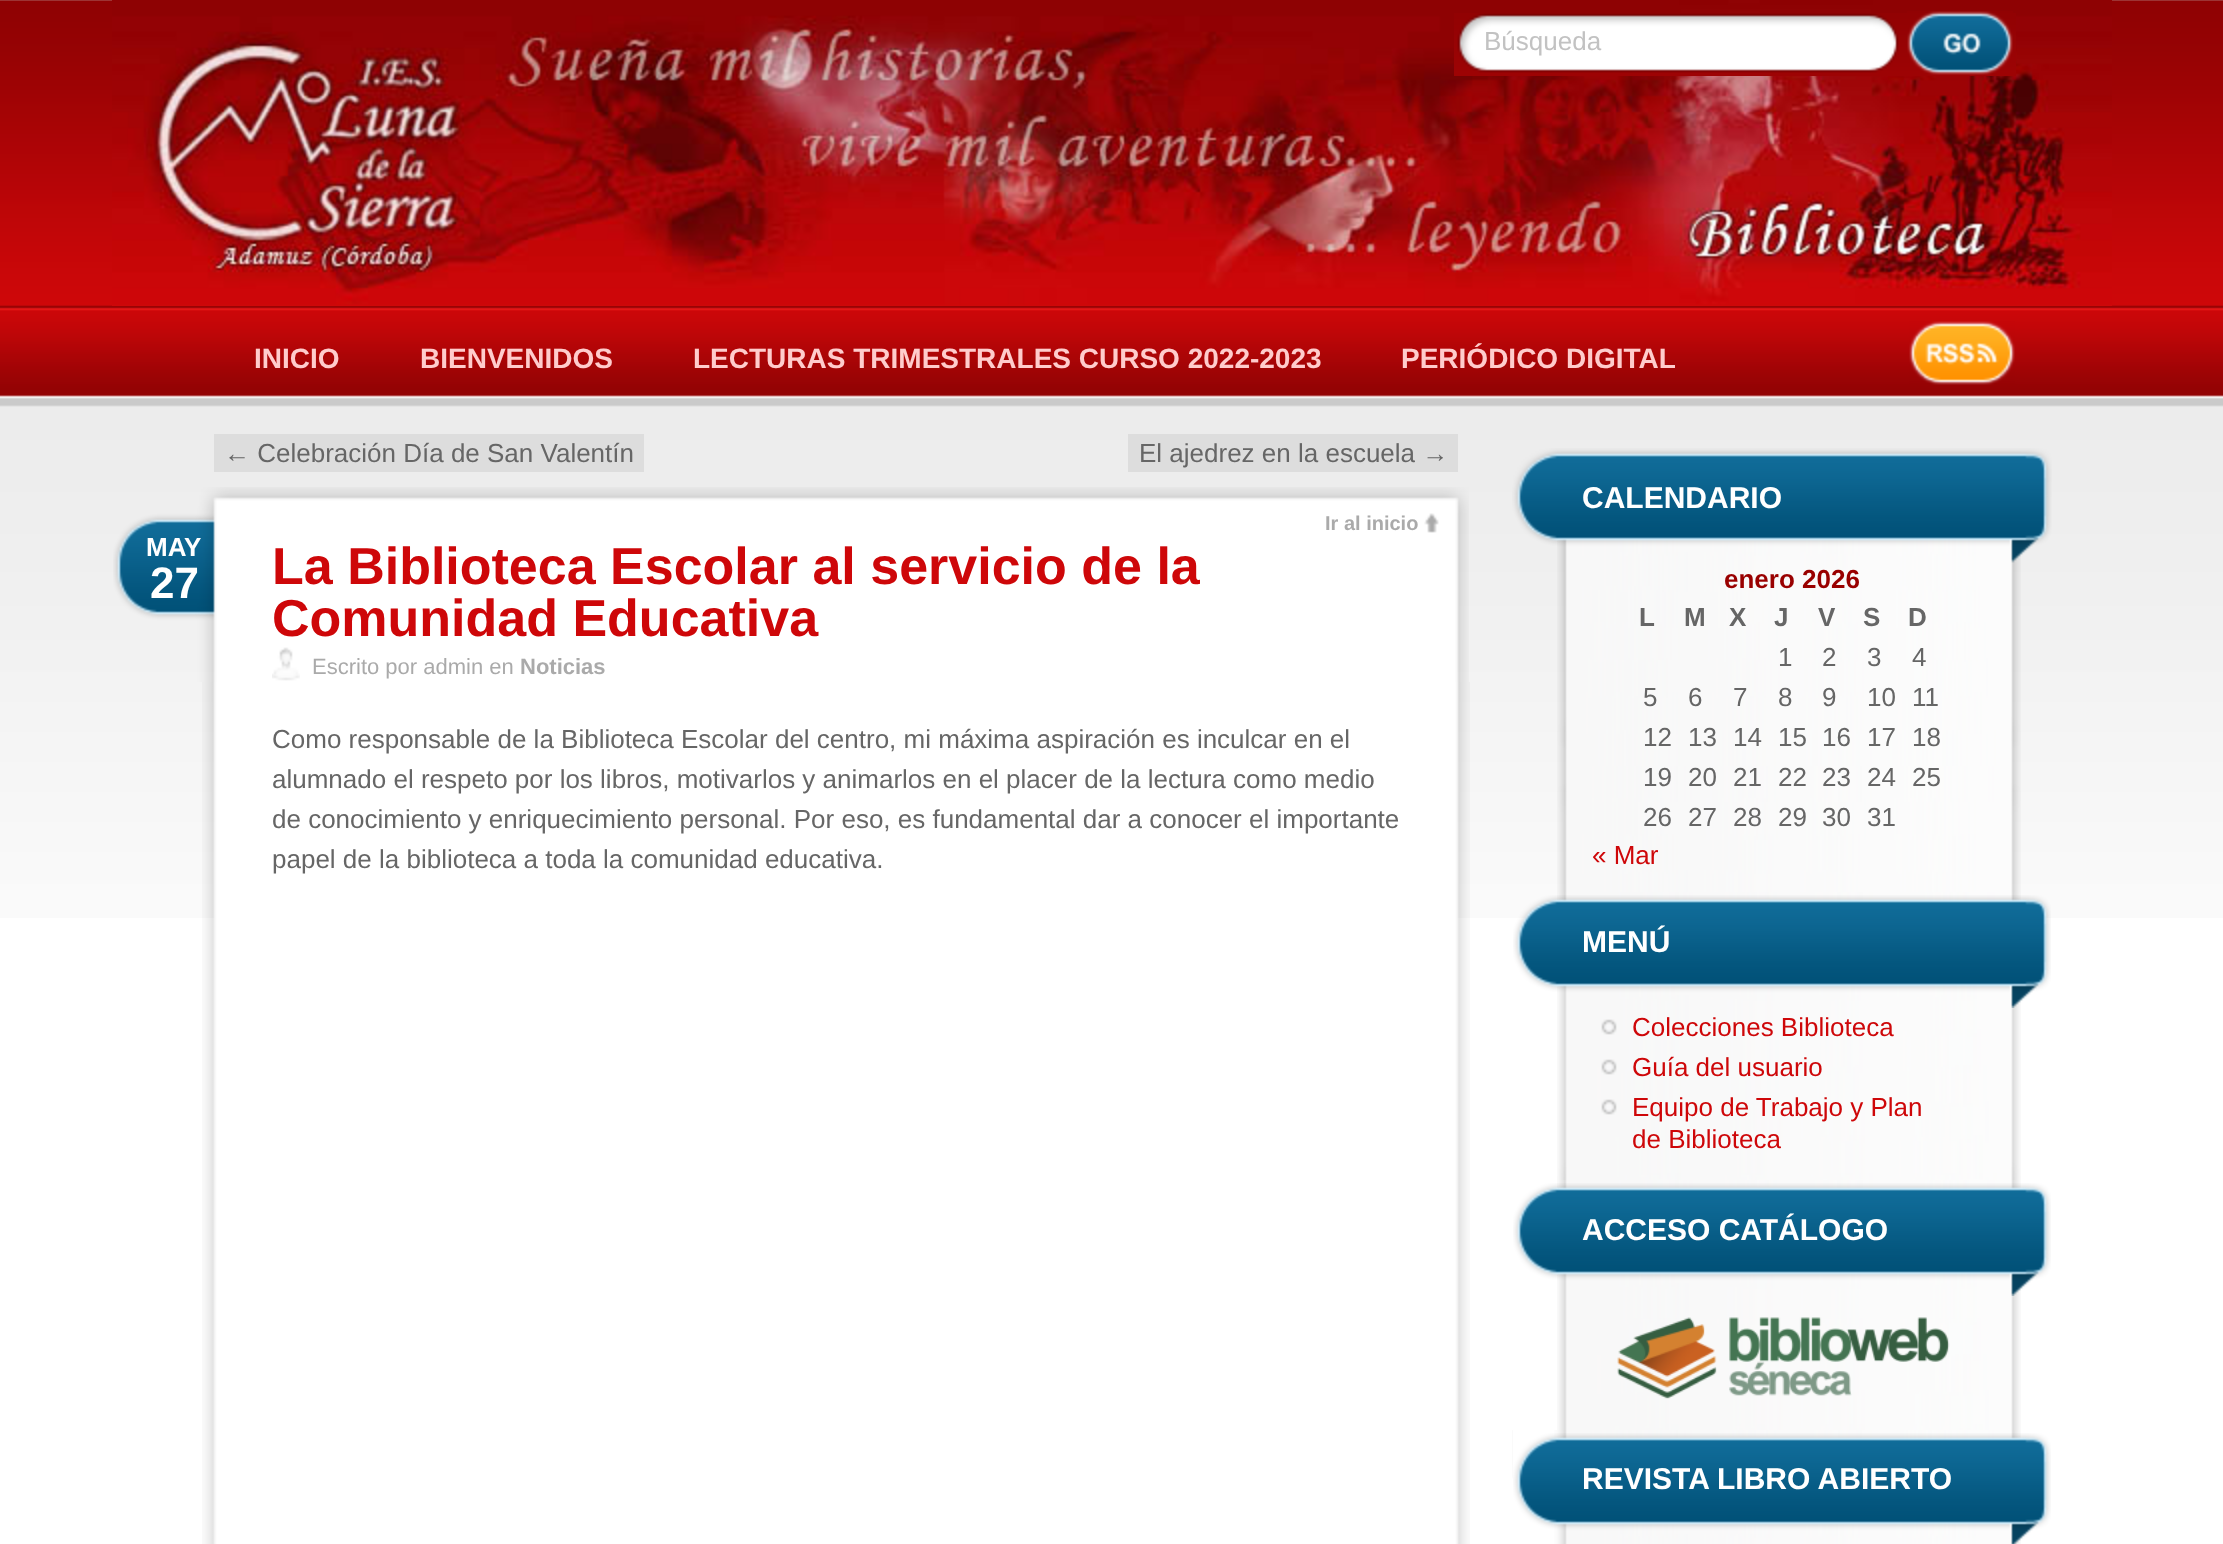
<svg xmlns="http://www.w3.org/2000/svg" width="2223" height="1544">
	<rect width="100%" height="100%" fill="#FFFFFF" />
	<image x="0" y="0" width="2223" height="918" href="assets/img1.png" />
	<image x="112" y="0" width="2000" height="306" href="assets/img2.png" />
	<image x="1454" y="13" width="562" height="63" href="assets/img3.png" />
	<text x="1484" y="50" font-family="Liberation Sans" font-size="26" fill="#C2C2C2">Búsqueda</text>
	<image x="1907" y="11" width="106" height="64" href="assets/img4.png" />
	<g font-family="Liberation Sans" font-size="28" font-weight="700" fill="#FFCCCC">
		<text x="254" y="368">INICIO</text>
		<text x="420" y="368">BIENVENIDOS</text>
		<text x="693" y="368">LECTURAS TRIMESTRALES CURSO 2022-2023</text>
		<text x="1401" y="368">PERIÓDICO DIGITAL</text>
	</g>
	<image x="1909" y="321" width="106" height="64" href="assets/img5.png" />
	<rect x="214" y="434" width="430" height="38" fill="#DDDDDD" />
	<text x="224" y="462" font-family="Liberation Sans" font-size="26" fill="#666666">← Celebración Día de San Valentín</text>
	<rect x="1128" y="434" width="330" height="38" fill="#DDDDDD" />
	<text x="1139" y="462" font-family="Liberation Sans" font-size="26" fill="#666666">El ajedrez en la escuela →</text>
	<image x="113" y="487" width="1356" height="195" href="assets/img6.png" />
	<image x="1424" y="513" width="15" height="20" href="assets/img7.png" />
	<text x="1325" y="530" font-family="Liberation Sans" font-size="20" font-weight="700" fill="#AAAAAA">Ir al inicio</text>
	<text x="146" y="556" font-family="Liberation Sans" font-size="26" font-weight="700" fill="#FFFFFF">MAY</text>
	<text x="150" y="598" font-family="Liberation Sans" font-size="44" font-weight="700" fill="#FFFFFF">27</text>
	<g font-family="Liberation Sans" font-size="52" font-weight="700" fill="#CE0709">
		<text x="272" y="584">La Biblioteca Escolar al servicio de la</text>
		<text x="272" y="636">Comunidad Educativa</text>
	</g>
	<image x="272" y="647" width="28" height="34" href="assets/img8.png" />
	<text x="312" y="674" font-family="Liberation Sans" font-size="22" fill="#AAAAAA">Escrito por admin en</text>
	<text x="520" y="674" font-family="Liberation Sans" font-size="22" font-weight="700" fill="#AAAAAA">Noticias</text>
	<image x="202" y="682" width="1268" height="862" href="assets/img9.png" />
	<g font-family="Liberation Sans" font-size="26" fill="#666666">
		<text x="272" y="748">Como responsable de la Biblioteca Escolar del centro, mi máxima aspiración es inculcar en el</text>
		<text x="272" y="788">alumnado el respeto por los libros, motivarlos y animarlos en el placer de la lectura como medio</text>
		<text x="272" y="828">de conocimiento y enriquecimiento personal. Por eso, es fundamental dar a conocer el importante</text>
		<text x="272" y="868">papel de la biblioteca a toda la comunidad educativa.</text>
	</g>
	<image x="1557" y="539" width="464" height="353" href="assets/img10.png" />
	<image x="1512" y="448" width="540" height="115" href="assets/img11.png" />
	<text x="1582" y="508" font-family="Liberation Sans" font-size="30" font-weight="700" fill="#FFFFFF">CALENDARIO</text>
	<text x="1724" y="588" font-family="Liberation Sans" font-size="26" font-weight="700" fill="#990000">enero 2026</text>
	<g font-family="Liberation Sans" font-size="26" font-weight="700" fill="#666666">
		<text x="1639" y="626">L</text>
		<text x="1684" y="626">M</text>
		<text x="1729" y="626">X</text>
		<text x="1774" y="626">J</text>
		<text x="1818" y="626">V</text>
		<text x="1863" y="626">S</text>
		<text x="1908" y="626">D</text>
	</g>
	<g font-family="Liberation Sans" font-size="26" fill="#666666">
		<text x="1778" y="666">1</text>
		<text x="1822" y="666">2</text>
		<text x="1867" y="666">3</text>
		<text x="1912" y="666">4</text>
		<text x="1643" y="706">5</text>
		<text x="1688" y="706">6</text>
		<text x="1733" y="706">7</text>
		<text x="1778" y="706">8</text>
		<text x="1822" y="706">9</text>
		<text x="1867" y="706">10</text>
		<text x="1912" y="706">11</text>
		<text x="1643" y="746">12</text>
		<text x="1688" y="746">13</text>
		<text x="1733" y="746">14</text>
		<text x="1778" y="746">15</text>
		<text x="1822" y="746">16</text>
		<text x="1867" y="746">17</text>
		<text x="1912" y="746">18</text>
		<text x="1643" y="786">19</text>
		<text x="1688" y="786">20</text>
		<text x="1733" y="786">21</text>
		<text x="1778" y="786">22</text>
		<text x="1822" y="786">23</text>
		<text x="1867" y="786">24</text>
		<text x="1912" y="786">25</text>
		<text x="1643" y="826">26</text>
		<text x="1688" y="826">27</text>
		<text x="1733" y="826">28</text>
		<text x="1778" y="826">29</text>
		<text x="1822" y="826">30</text>
		<text x="1867" y="826">31</text>
	</g>
	<text x="1592" y="864" font-family="Liberation Sans" font-size="26" fill="#CE0709">« Mar</text>
	<image x="1557" y="892" width="464" height="288" href="assets/img12.png" />
	<image x="1513" y="895" width="538" height="113" href="assets/img13.png" />
	<text x="1582" y="952" font-family="Liberation Sans" font-size="30" font-weight="700" fill="#FFFFFF">MENÚ</text>
	<image x="1601" y="1019" width="16" height="16" href="assets/img14.png" />
	<text x="1632" y="1036" font-family="Liberation Sans" font-size="26" fill="#CE0709">Colecciones Biblioteca</text>
	<image x="1601" y="1059" width="16" height="16" href="assets/img14.png" />
	<text x="1632" y="1076" font-family="Liberation Sans" font-size="26" fill="#CE0709">Guía del usuario</text>
	<image x="1601" y="1099" width="16" height="16" href="assets/img14.png" />
	<g font-family="Liberation Sans" font-size="26" fill="#CE0709">
		<text x="1632" y="1116">Equipo de Trabajo y Plan</text>
		<text x="1632" y="1148">de Biblioteca</text>
	</g>
	<image x="1557" y="1180" width="464" height="250" href="assets/img15.png" />
	<image x="1513" y="1183" width="538" height="113" href="assets/img16.png" />
	<text x="1582" y="1240" font-family="Liberation Sans" font-size="30" font-weight="700" fill="#FFFFFF">ACCESO CATÁLOGO</text>
	<image x="1617" y="1317" width="333" height="82" href="assets/img17.png" />
	<image x="1512" y="1430" width="509" height="114" href="assets/img18.png" />
	<image x="1513" y="1433" width="538" height="111" href="assets/img19.png" />
	<text x="1582" y="1489" font-family="Liberation Sans" font-size="30" font-weight="700" fill="#FFFFFF">REVISTA LIBRO ABIERTO</text>
</svg>
